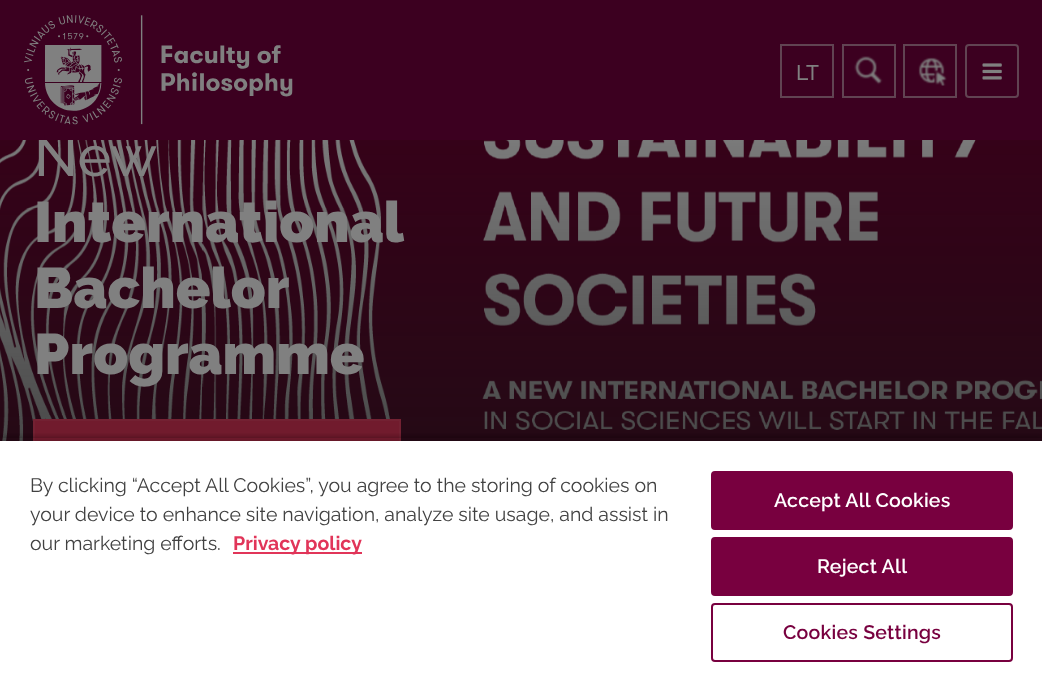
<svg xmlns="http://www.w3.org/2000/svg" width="1042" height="676">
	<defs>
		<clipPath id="clip1"><rect x="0" y="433" width="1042" height="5" /></clipPath>
	</defs>
	<rect width="100%" height="100%" fill="#FFFFFF" />
	<image x="0" y="140" width="1042" height="301" href="assets/img5.png" />
	<text x="34" y="176" font-family="Raleway" font-size="57" font-weight="500" fill="#808080">New</text>
	<rect x="0" y="0" width="1042" height="140" fill="#3C0020" />
	<image x="24" y="15" width="269" height="110" href="assets/img1.png" />
	<rect x="781" y="45" width="52" height="52" fill="none" stroke="#614352" stroke-width="2" />
	<text x="796" y="80" font-family="Raleway" font-size="21" font-weight="500" fill="#808080">LT</text>
	<image x="854" y="56" width="29" height="29" href="assets/img2.png" />
	<rect x="843" y="45" width="52" height="52" fill="none" stroke="#614352" stroke-width="2" />
	<rect x="904" y="45" width="52" height="52" fill="none" stroke="#614352" stroke-width="2" />
	<image x="918" y="57" width="29" height="29" href="assets/img3.png" />
	<rect x="966" y="45" width="52" height="52" rx="3" fill="none" stroke="#614352" stroke-width="2" />
	<image x="982" y="63" width="20" height="17" href="assets/img4.png" />
	<g font-family="Raleway" font-size="57" font-weight="900" fill="#808080">
		<text x="34" y="242">International</text>
		<text x="34" y="308">Bachelor</text>
		<text x="34" y="374">Programme</text>
	</g>
	<rect x="35" y="421" width="364" height="20" fill="#711B2D" />
	<rect x="34" y="420" width="366" height="82" fill="none" stroke="#732132" stroke-width="2" />
	<g clip-path="url(#clip1)">
		<rect x="0" y="438" width="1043" height="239" fill="#000000" fill-opacity="0.35" filter="blur(3px)" />
	</g>
	<rect x="0" y="441" width="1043" height="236" fill="#000000" fill-opacity="0.2" filter="blur(3px)" />
	<rect x="0" y="441" width="1042" height="235" fill="#FFFFFF" />
	<g font-family="Raleway" font-size="19.5" fill="#414141">
		<text x="30" y="492">By clicking “Accept All Cookies”, you agree to the storing of cookies on</text>
		<text x="30" y="521">your device to enhance site navigation, analyze site usage, and assist in</text>
		<text x="30" y="550">our marketing efforts.</text>
	</g>
	<rect x="233" y="552" width="129" height="2" fill="#E13559" />
	<text x="233" y="550" font-family="Raleway" font-size="19.5" font-weight="700" fill="#E13559">Privacy policy</text>
	<rect x="712" y="472" width="300" height="57" rx="3" fill="#78003F" stroke="#78003F" stroke-width="2" />
	<text x="774" y="507" font-family="Raleway" font-size="19.5" font-weight="600" letter-spacing="0.25" fill="#FFFFFF">Accept All Cookies</text>
	<rect x="712" y="538" width="300" height="57" rx="3" fill="#78003F" stroke="#78003F" stroke-width="2" />
	<text x="817" y="573" font-family="Raleway" font-size="19.5" font-weight="600" letter-spacing="0.25" fill="#FFFFFF">Reject All</text>
	<rect x="712" y="604" width="300" height="57" rx="3" fill="none" stroke="#78003F" stroke-width="2" />
	<text x="783" y="639" font-family="Raleway" font-size="19.5" font-weight="600" letter-spacing="0.25" fill="#78003F">Cookies Settings</text>
</svg>
